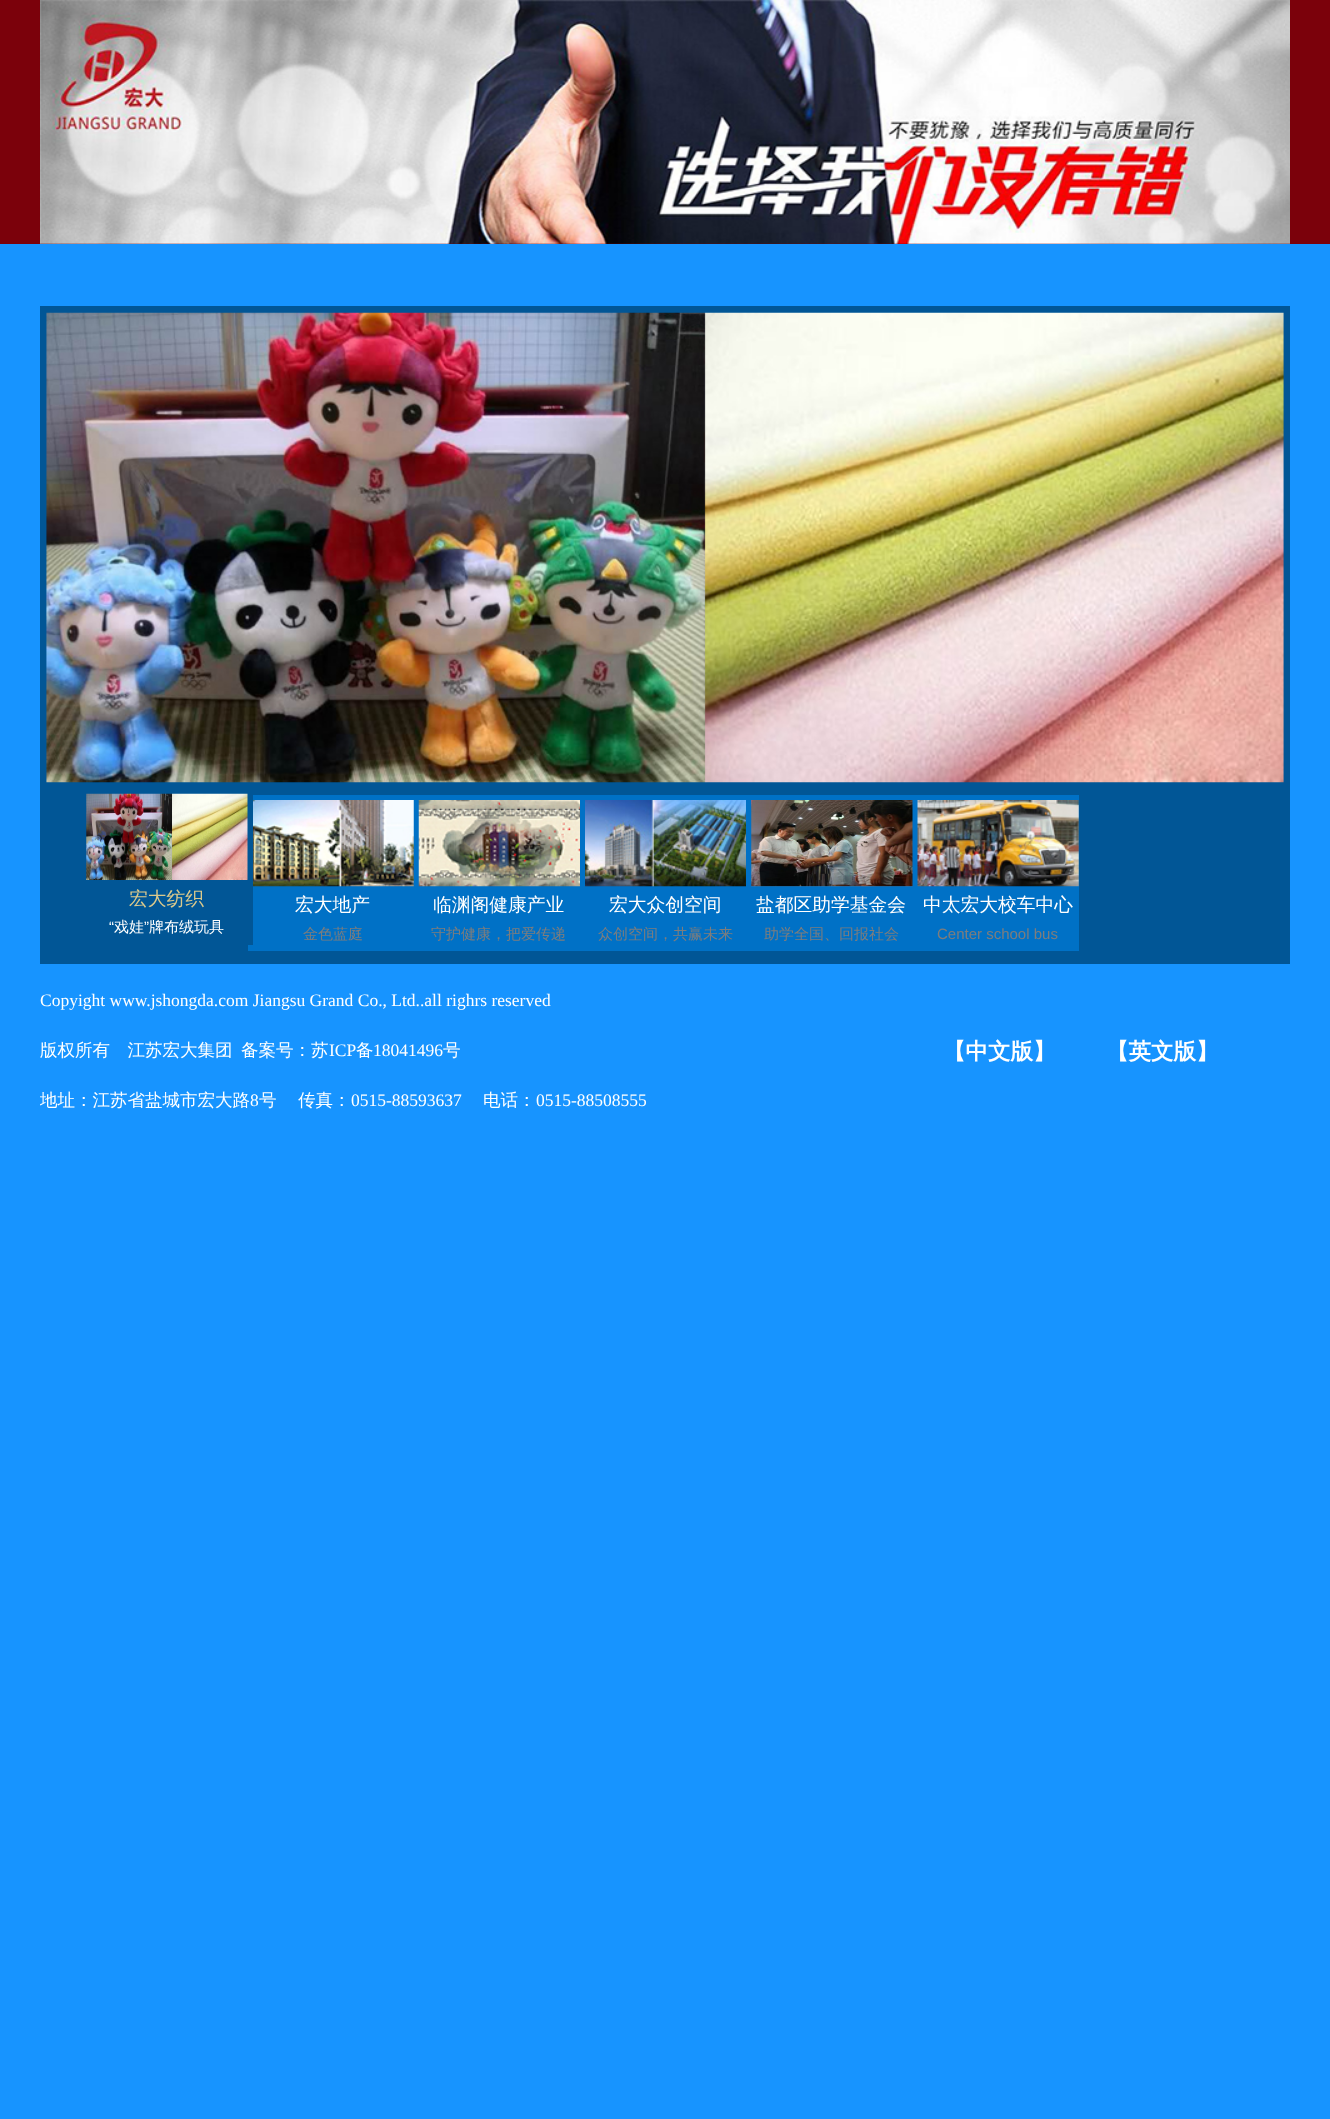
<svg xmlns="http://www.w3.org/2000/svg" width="1330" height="2119">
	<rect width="100%" height="100%" fill="#1794FF" />
	<rect x="0" y="0" width="1330" height="244" fill="#7B010B" />
	<image x="40" y="0" width="1250" height="244" href="assets/img1.png" />
	<rect x="40" y="306" width="1250" height="658" fill="#015696" />
	<image x="46" y="312" width="1238" height="471" href="assets/img2.png" />
	<rect x="248" y="795" width="831" height="156" fill="#0071C6" />
	<rect x="248" y="795" width="5" height="150" fill="#015696" />
	<image x="86" y="793" width="162" height="87" href="assets/img3.png" />
	<text x="129" y="905" font-family="WenQuanYi Zen Hei" font-size="18.75" font-weight="500" fill="#DBC98C">宏大纺织</text>
	<text x="109" y="932" font-family="Liberation Sans" font-size="15" fill="#FFFFFF">“</text>
	<text x="114" y="932" font-family="WenQuanYi Zen Hei" font-size="15" font-weight="500" fill="#FFFFFF">戏娃</text>
	<text x="144" y="932" font-family="Liberation Sans" font-size="15" fill="#FFFFFF">”</text>
	<text x="149" y="932" font-family="WenQuanYi Zen Hei" font-size="15" font-weight="500" fill="#FFFFFF">牌布绒玩具</text>
	<image x="253" y="800" width="161" height="87" href="assets/img4.png" />
	<text x="295" y="911" font-family="WenQuanYi Zen Hei" font-size="18.75" font-weight="500" fill="#FFFFFF">宏大地产</text>
	<text x="303" y="939" font-family="WenQuanYi Zen Hei" font-size="15" font-weight="500" fill="#7D7D7D">金色蓝庭</text>
	<image x="418" y="800" width="162" height="87" href="assets/img5.png" />
	<text x="433" y="911" font-family="WenQuanYi Zen Hei" font-size="18.75" font-weight="500" fill="#FFFFFF">临渊阁健康产业</text>
	<text x="431" y="939" font-family="WenQuanYi Zen Hei" font-size="15" font-weight="500" fill="#7D7D7D">守护健康，把爱传递</text>
	<image x="585" y="800" width="161" height="87" href="assets/img6.png" />
	<text x="609" y="911" font-family="WenQuanYi Zen Hei" font-size="18.75" font-weight="500" fill="#FFFFFF">宏大众创空间</text>
	<text x="598" y="939" font-family="WenQuanYi Zen Hei" font-size="15" font-weight="500" fill="#7D7D7D">众创空间，共赢未来</text>
	<image x="751" y="800" width="162" height="87" href="assets/img7.png" />
	<text x="756" y="911" font-family="WenQuanYi Zen Hei" font-size="18.75" font-weight="500" fill="#FFFFFF">盐都区助学基金会</text>
	<text x="764" y="939" font-family="WenQuanYi Zen Hei" font-size="15" font-weight="500" fill="#7D7D7D">助学全国、回报社会</text>
	<image x="917" y="800" width="162" height="87" href="assets/img8.png" />
	<text x="923" y="911" font-family="WenQuanYi Zen Hei" font-size="18.75" font-weight="500" fill="#FFFFFF">中太宏大校车中心</text>
	<text x="937" y="939" font-family="Liberation Sans" font-size="15" fill="#7D7D7D">Center school bus</text>
	<text x="40" y="1006" font-family="Liberation Serif" font-size="17.5" fill="#FFFFFF">Copyight www.jshongda.com Jiangsu Grand Co., Ltd..all righrs reserved</text>
	<g font-family="WenQuanYi Zen Hei" font-size="17.5" font-weight="500" fill="#FFFFFF">
		<text x="40" y="1056">版权所有　江苏宏大集团</text>
		<text x="241" y="1056">备案号：苏</text>
	</g>
	<text x="329" y="1056" font-family="Liberation Serif" font-size="17.5" fill="#FFFFFF">ICP</text>
	<text x="356" y="1056" font-family="WenQuanYi Zen Hei" font-size="17.5" font-weight="500" fill="#FFFFFF">备</text>
	<text x="373" y="1056" font-family="Liberation Serif" font-size="17.5" fill="#FFFFFF">18041496</text>
	<g font-family="WenQuanYi Zen Hei" font-size="17.5" font-weight="500" fill="#FFFFFF">
		<text x="443" y="1056">号</text>
		<text x="40" y="1106">地址：江苏省盐城市宏大路</text>
	</g>
	<text x="250" y="1106" font-family="Liberation Serif" font-size="17.5" fill="#FFFFFF">8</text>
	<g font-family="WenQuanYi Zen Hei" font-size="17.5" font-weight="500" fill="#FFFFFF">
		<text x="259" y="1106">号</text>
		<text x="298" y="1106">传真：</text>
	</g>
	<text x="351" y="1106" font-family="Liberation Serif" font-size="17.5" fill="#FFFFFF">0515-88593637</text>
	<text x="483" y="1106" font-family="WenQuanYi Zen Hei" font-size="17.5" font-weight="500" fill="#FFFFFF">电话：</text>
	<text x="536" y="1106" font-family="Liberation Serif" font-size="17.5" fill="#FFFFFF">0515-88508555</text>
	<g font-family="WenQuanYi Zen Hei" font-size="22.5" font-weight="700" fill="#FFFFFF">
		<text x="943" y="1059">【中文版】</text>
		<text x="1106" y="1059">【英文版】</text>
	</g>
</svg>
